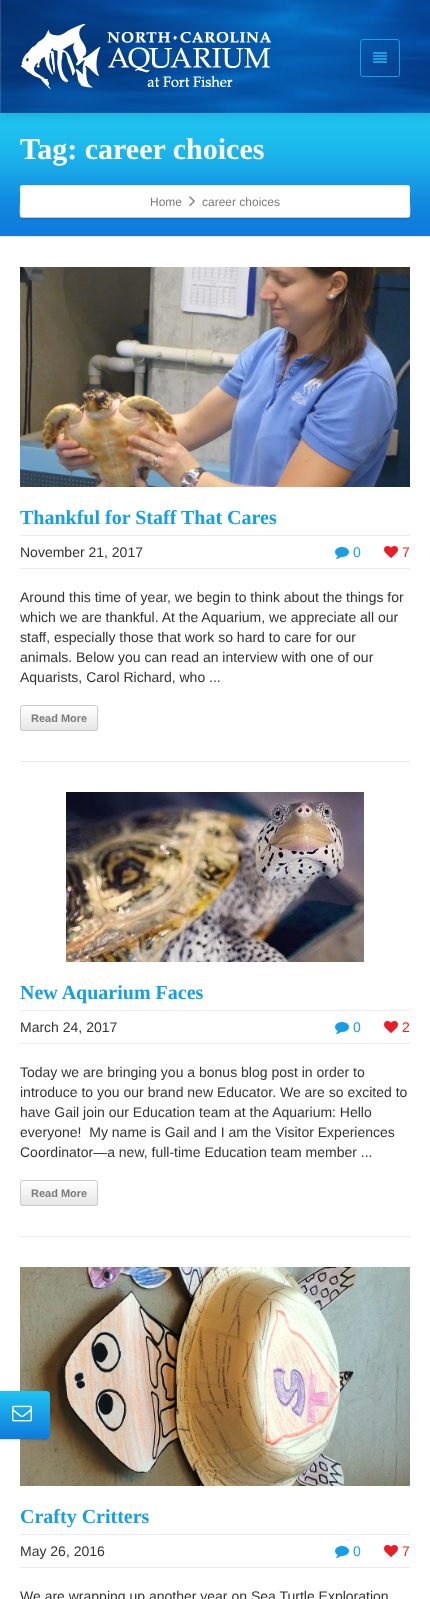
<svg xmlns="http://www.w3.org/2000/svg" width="430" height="1599">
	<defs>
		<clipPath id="clip1"><rect x="20" y="505" width="390" height="226" /></clipPath>
		<clipPath id="clip2"><rect x="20" y="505" width="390" height="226" /></clipPath>
		<clipPath id="clip3"><rect x="20" y="705" width="78" height="26" rx="3" /></clipPath>
		<linearGradient id="g1" gradientUnits="userSpaceOnUse" x1="59" y1="706" x2="59" y2="730"><stop offset="0" stop-color="#FFFFFF" /><stop offset="1" stop-color="#E6E6E6" /></linearGradient>
		<clipPath id="clip4"><rect x="20" y="980" width="390" height="226" /></clipPath>
		<clipPath id="clip5"><rect x="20" y="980" width="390" height="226" /></clipPath>
		<clipPath id="clip6"><rect x="20" y="1180" width="78" height="26" rx="3" /></clipPath>
		<linearGradient id="g2" gradientUnits="userSpaceOnUse" x1="59" y1="1181" x2="59" y2="1205"><stop offset="0" stop-color="#FFFFFF" /><stop offset="1" stop-color="#E6E6E6" /></linearGradient>
		<linearGradient id="g3" gradientUnits="userSpaceOnUse" x1="20" y1="1391" x2="20" y2="1439"><stop offset="0" stop-color="#1FC4F0" /><stop offset="1" stop-color="#0E7ADD" /></linearGradient>
	</defs>
	<rect width="100%" height="100%" fill="#FFFFFF" />
	<image x="0" y="113" width="430" height="123" href="assets/img4.png" />
	<rect x="0" y="2" width="430" height="113" fill="#000000" fill-opacity="0.1" filter="blur(5px)" />
	<image x="0" y="0" width="430" height="113" href="assets/img1.png" />
	<image x="21" y="24" width="250" height="65" href="assets/img2.png" />
	<rect x="360.5" y="39.5" width="39" height="37" rx="2.5" fill="none" stroke="#169FE6" />
	<image x="373" y="52" width="14" height="11" href="assets/img3.png" />
	<rect x="0" y="236" width="430" height="1" fill="#EBEBEB" />
	<text x="20" y="159" font-family="Liberation Serif" font-size="30" font-weight="700" fill="#FFFFFF">Tag: career choices</text>
	<path d="M20 215C20 217 21 219 23 219H407L409 218L410 215C410 217 409 218 407 218H23C21 218 20 217 20 215Z" fill="#0E78CE" />
	<path d="M20 215V218C20 220 21 221 23 221H407C409 221 410 220 410 218V215C410 217 409 218 407 218H23C21 218 20 217 20 215Z" fill="#000000" fill-opacity="0.03" />
	<rect x="20" y="185" width="390" height="33" rx="3" fill="#FFFFFF" />
	<path d="M409 217L407 217.5H23L21 217" fill="none" stroke="#000000" stroke-opacity="0.22" />
	<path d="M21 217C19.5 215 20.5 204 20.5 201.5V192.5C20.5 190.5 19.5 185.5 23 185.5H407C410.5 185.5 409.5 190.5 409.5 192.5V201.5C409.5 204 410.5 215 409 217" fill="none" stroke="#EBEBEB" />
	<text x="150" y="206" font-family="Liberation Sans" font-size="12" fill="#7C7C7C">Home</text>
	<image x="189" y="196" width="6" height="11" href="assets/img5.png" />
	<text x="202" y="206" font-family="Liberation Sans" font-size="12" fill="#7C7C7C">career choices</text>
	<rect x="20" y="761" width="390" height="1" fill="#EBEBEB" />
	<image x="20" y="267" width="390" height="220" href="assets/img6.png" />
	<text x="20" y="524" font-family="Liberation Serif" font-size="20" font-weight="700" fill="#169FE6">Thankful for Staff That Cares</text>
	<rect x="20" y="535" width="390" height="1" fill="#EBEBEB" />
	<rect x="20" y="568" width="390" height="1" fill="#EBEBEB" />
	<text x="20" y="557" font-family="Liberation Sans" font-size="14" fill="#333333">November 21, 2017</text>
	<image x="335" y="547" width="14" height="12" href="assets/img7.png" />
	<text x="353" y="557" font-family="Liberation Sans" font-size="14" fill="#169FE6">0</text>
	<image x="384" y="546" width="14" height="12" href="assets/img8.png" />
	<text x="402" y="557" font-family="Liberation Sans" font-size="14" fill="#ED1C24">7</text>
	<g font-family="Liberation Sans" font-size="14" fill="#333333">
		<text x="20" y="602">Around this time of year, we begin to think about the things for</text>
		<text x="20" y="622">which we are thankful. At the Aquarium, we appreciate all our</text>
		<text x="20" y="642">staff, especially those that work so hard to care for our</text>
		<text x="20" y="662">animals. Below you can read an interview with one of our</text>
		<text x="20" y="682">Aquarists, Carol Richard, who ...</text>
	</g>
	<g clip-path="url(#clip1)">
		<path d="M20 728C20 735 31 732 35 732H83C87 732 98 735 98 728C98 730 97 731 95 731H23C21 731 20 730 20 728Z" fill="#EBEBEB" />
	</g>
	<g clip-path="url(#clip2)">
		<rect x="20" y="707" width="78" height="26" rx="3" fill="#000000" fill-opacity="0.05" filter="blur(1px)" />
	</g>
	<g clip-path="url(#clip3)">
		<rect x="20" y="706" width="78" height="24" fill="url(#g1)" />
	</g>
	<rect x="20.5" y="705.5" width="77" height="25" rx="2.5" fill="none" stroke="#CCCCCC" />
	<text x="31" y="722" font-family="Liberation Sans" font-size="11" font-weight="700" fill="#7C7C7C">Read More</text>
	<rect x="20" y="1236" width="390" height="1" fill="#EBEBEB" />
	<image x="66" y="792" width="298" height="170" href="assets/img9.png" />
	<text x="20" y="999" font-family="Liberation Serif" font-size="20" font-weight="700" fill="#169FE6">New Aquarium Faces</text>
	<rect x="20" y="1010" width="390" height="1" fill="#EBEBEB" />
	<rect x="20" y="1043" width="390" height="1" fill="#EBEBEB" />
	<text x="20" y="1032" font-family="Liberation Sans" font-size="14" fill="#333333">March 24, 2017</text>
	<image x="335" y="1022" width="14" height="12" href="assets/img7.png" />
	<text x="353" y="1032" font-family="Liberation Sans" font-size="14" fill="#169FE6">0</text>
	<image x="384" y="1021" width="14" height="12" href="assets/img8.png" />
	<text x="402" y="1032" font-family="Liberation Sans" font-size="14" fill="#ED1C24">2</text>
	<g font-family="Liberation Sans" font-size="14" fill="#333333">
		<text x="20" y="1077">Today we are bringing you a bonus blog post in order to</text>
		<text x="20" y="1097">introduce to you our brand new Educator. We are so excited to</text>
		<text x="20" y="1117">have Gail join our Education team at the Aquarium: Hello</text>
		<text x="20" y="1137" xml:space="preserve">everyone!  My name is Gail and I am the Visitor Experiences</text>
		<text x="20" y="1157">Coordinator—a new, full-time Education team member ...</text>
	</g>
	<g clip-path="url(#clip4)">
		<path d="M20 1203C20 1210 31 1207 35 1207H83C87 1207 98 1210 98 1203C98 1205 97 1206 95 1206H23C21 1206 20 1205 20 1203Z" fill="#EBEBEB" />
	</g>
	<g clip-path="url(#clip5)">
		<rect x="20" y="1182" width="78" height="26" rx="3" fill="#000000" fill-opacity="0.05" filter="blur(1px)" />
	</g>
	<g clip-path="url(#clip6)">
		<rect x="20" y="1181" width="78" height="24" fill="url(#g2)" />
	</g>
	<rect x="20.5" y="1180.5" width="77" height="25" rx="2.5" fill="none" stroke="#CCCCCC" />
	<text x="31" y="1197" font-family="Liberation Sans" font-size="11" font-weight="700" fill="#7C7C7C">Read More</text>
	<image x="20" y="1267" width="390" height="219" href="assets/img10.png" />
	<text x="20" y="1523" font-family="Liberation Serif" font-size="20" font-weight="700" fill="#169FE6">Crafty Critters</text>
	<rect x="20" y="1534" width="390" height="1" fill="#EBEBEB" />
	<rect x="20" y="1567" width="390" height="1" fill="#EBEBEB" />
	<text x="20" y="1556" font-family="Liberation Sans" font-size="14" fill="#333333">May 26, 2016</text>
	<image x="335" y="1546" width="14" height="12" href="assets/img7.png" />
	<text x="353" y="1556" font-family="Liberation Sans" font-size="14" fill="#169FE6">0</text>
	<image x="384" y="1545" width="14" height="12" href="assets/img8.png" />
	<text x="402" y="1556" font-family="Liberation Sans" font-size="14" fill="#ED1C24">7</text>
	<text x="20" y="1601" font-family="Liberation Sans" font-size="14" fill="#333333">We are wrapping up another year on Sea Turtle Exploration</text>
	<path d="M-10 1435C-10 1442-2 1440 3 1440H37C42 1440 50 1442 50 1435C50 1437 48 1439 46 1439H-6C-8 1439-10 1437-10 1435Z" fill="#000000" fill-opacity="0.08" />
	<rect x="-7" y="1393" width="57" height="48" rx="4" fill="#000000" fill-opacity="0.05" filter="blur(1px)" />
	<rect x="-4" y="1391" width="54" height="48" rx="4" fill="url(#g3)" />
	<image x="12" y="1405" width="20" height="17" href="assets/img11.png" />
</svg>
